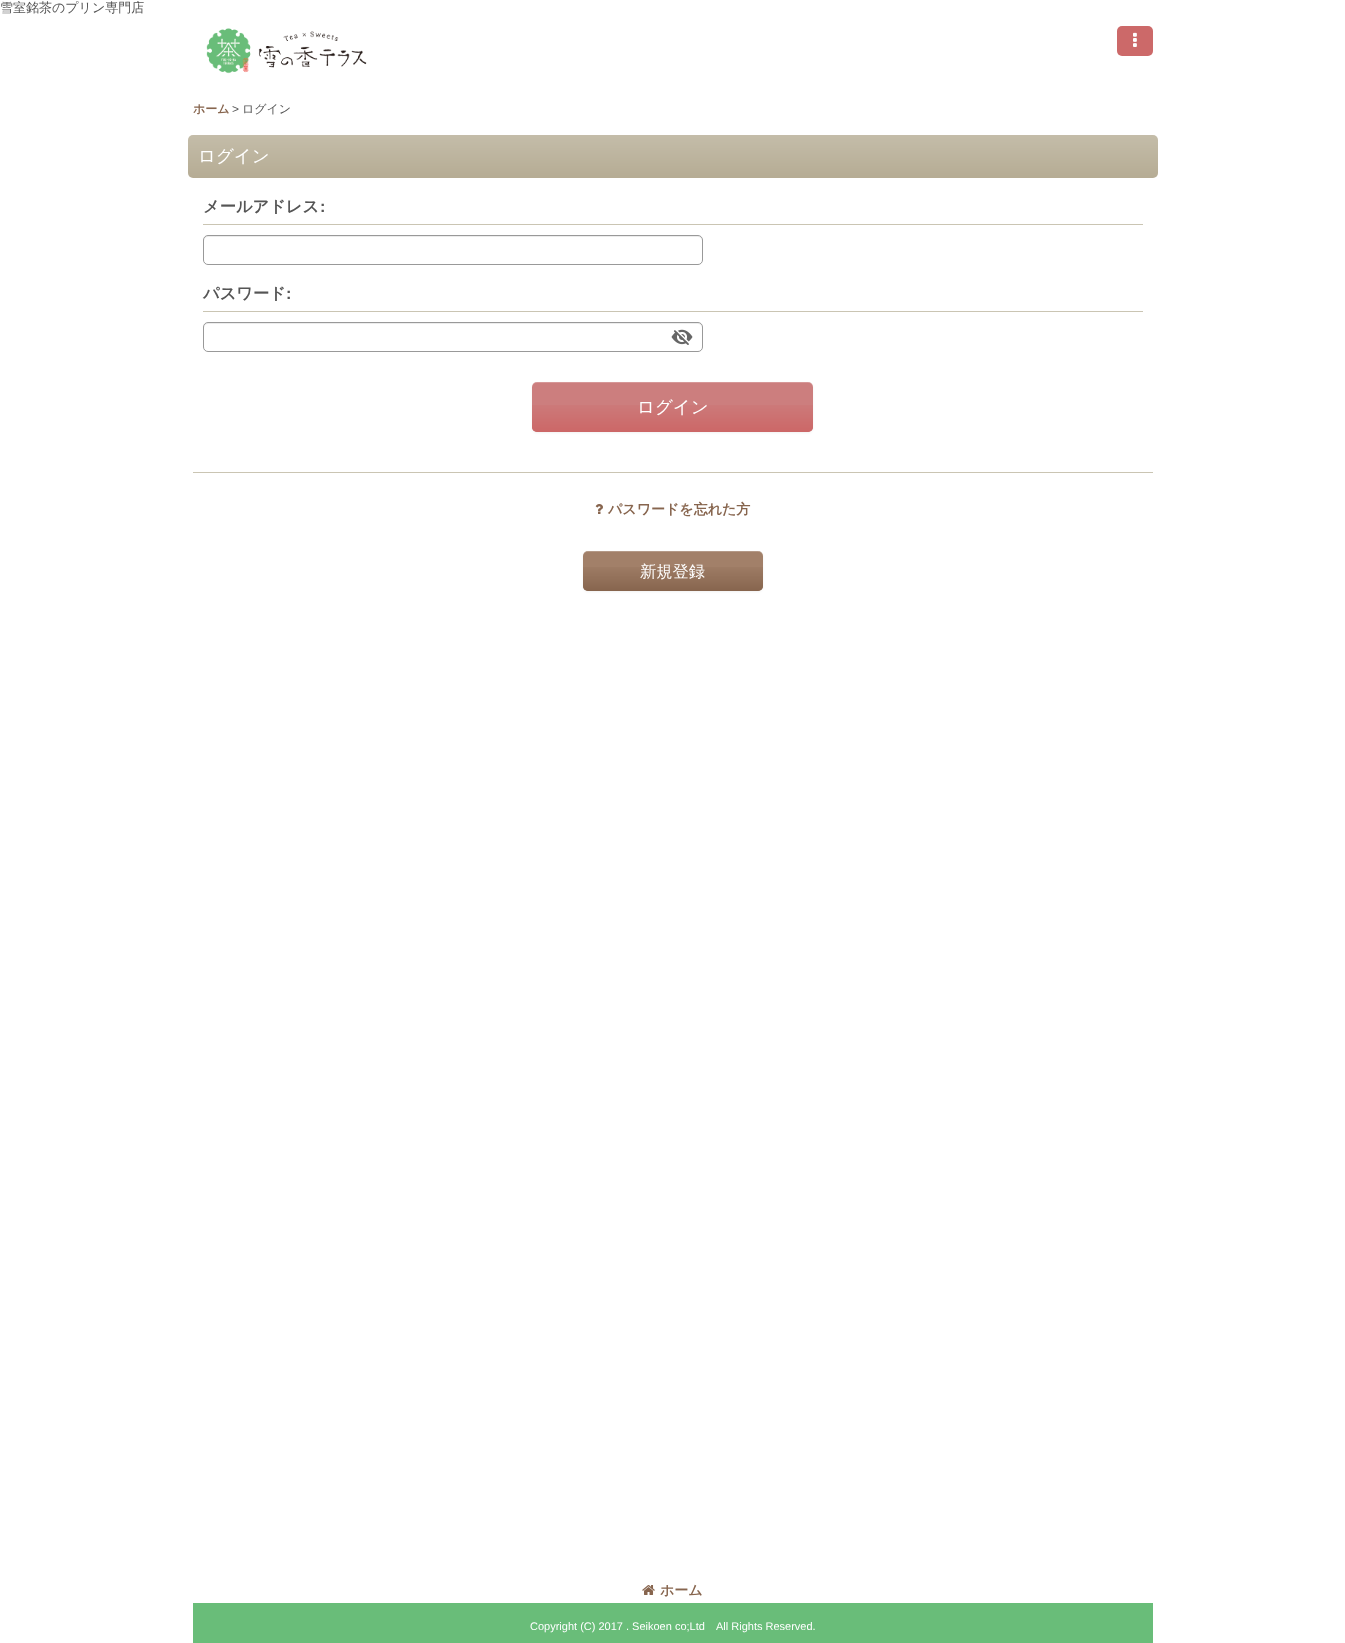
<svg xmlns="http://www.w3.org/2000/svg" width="1345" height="1643">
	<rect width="100%" height="100%" fill="#FFFFFF" />
	<text x="0" y="12" font-family="WenQuanYi Zen Hei" font-size="13" font-weight="500" fill="#555555">雪室銘茶のプリン専門店</text>
	<image x="206" y="28" width="161" height="46" href="assets/img1.png" />
	<rect x="1117" y="26" width="36" height="30" rx="5" fill="#CC6969" />
	<image x="1133" y="32" width="4" height="15" href="assets/img2.png" />
	<text x="193" y="113" font-family="WenQuanYi Zen Hei" font-size="12" font-weight="700" fill="#87654E">ホーム</text>
	<text x="232" y="113" font-family="Liberation Sans" font-size="12" fill="#555555">&gt;</text>
	<text x="242" y="113" font-family="WenQuanYi Zen Hei" font-size="12" font-weight="500" fill="#555555">ログイン</text>
	<image x="188" y="135" width="970" height="43" href="assets/img3.png" />
	<text x="198" y="162" font-family="WenQuanYi Zen Hei" font-size="17.5" font-weight="500" fill="#FFFFFF">ログイン</text>
	<rect x="203" y="224" width="940" height="1" fill="#CAC5B3" />
	<text x="203" y="212" font-family="WenQuanYi Zen Hei" font-size="16.25" font-weight="700" fill="#555555">メールアドレス</text>
	<text x="320" y="212" font-family="Liberation Sans" font-size="16.25" font-weight="700" fill="#555555">:</text>
	<path d="M208 237H698C700 237 702 239 702 241C702 238 701 236 698 236H208C205 236 204 238 204 241C204 239 206 237 208 237Z" fill="#ECECEC" />
	<rect x="203.5" y="235.5" width="499" height="29" rx="4.5" fill="none" stroke="#999999" />
	<rect x="203" y="311" width="940" height="1" fill="#CAC5B3" />
	<text x="203" y="299" font-family="WenQuanYi Zen Hei" font-size="16.25" font-weight="700" fill="#555555">パスワード</text>
	<text x="286" y="299" font-family="Liberation Sans" font-size="16.25" font-weight="700" fill="#555555">:</text>
	<path d="M208 324H698C700 324 702 326 702 328C702 325 701 323 698 323H208C205 323 204 325 204 328C204 326 206 324 208 324Z" fill="#ECECEC" />
	<rect x="203.5" y="322.5" width="499" height="29" rx="4.5" fill="none" stroke="#999999" />
	<image x="671" y="329" width="22" height="16" href="assets/img4.png" />
	<rect x="532" y="383" width="281" height="50" rx="5" fill="#000000" fill-opacity="0.05" filter="blur(1px)" />
	<rect x="532" y="382" width="281" height="50" rx="5" fill="#CC7E7E" />
	<image x="532" y="405" width="281" height="27" href="assets/img5.png" />
	<path d="M537 383H808C811 383 813 385 813 388V387C813 384 811 382 808 382H537C534 382 532 384 532 387V388C532 385 534 383 537 383Z" fill="#FFFFFF" fill-opacity="0.2" />
	<text x="637" y="413" font-family="WenQuanYi Zen Hei" font-size="17.5" font-weight="500" fill="#FFFFFF">ログイン</text>
	<rect x="193" y="472" width="960" height="1" fill="#CAC5B3" />
	<image x="595" y="504" width="8" height="10" href="assets/img6.png" />
	<text x="608" y="514" font-family="WenQuanYi Zen Hei" font-size="14" font-weight="700" fill="#87654E">パスワードを忘れた方</text>
	<rect x="583" y="552" width="180" height="40" rx="5" fill="#000000" fill-opacity="0.05" filter="blur(1px)" />
	<rect x="583" y="551" width="180" height="40" rx="5" fill="#A28069" />
	<image x="583" y="567" width="180" height="24" href="assets/img7.png" />
	<path d="M588 552H758C761 552 763 554 763 557C763 554 762 552 759 551H588C585 551 583 554 583 557C583 554 585 552 588 552Z" fill="#FFFFFF" fill-opacity="0.2" />
	<text x="640" y="577" font-family="WenQuanYi Zen Hei" font-size="16.25" font-weight="500" fill="#FFFFFF">新規登録</text>
	<image x="642" y="1585" width="13" height="10" href="assets/img8.png" />
	<text x="660" y="1595" font-family="WenQuanYi Zen Hei" font-size="14" font-weight="700" fill="#87654E">ホーム</text>
	<rect x="193" y="1603" width="960" height="40" fill="#69BD79" />
	<g font-family="Liberation Sans" font-size="11" fill="#FFFFFF">
		<text x="530" y="1630">Copyright (C) 2017 . Seikoen co;Ltd</text>
		<text x="716" y="1630">All Rights Reserved.</text>
	</g>
</svg>
